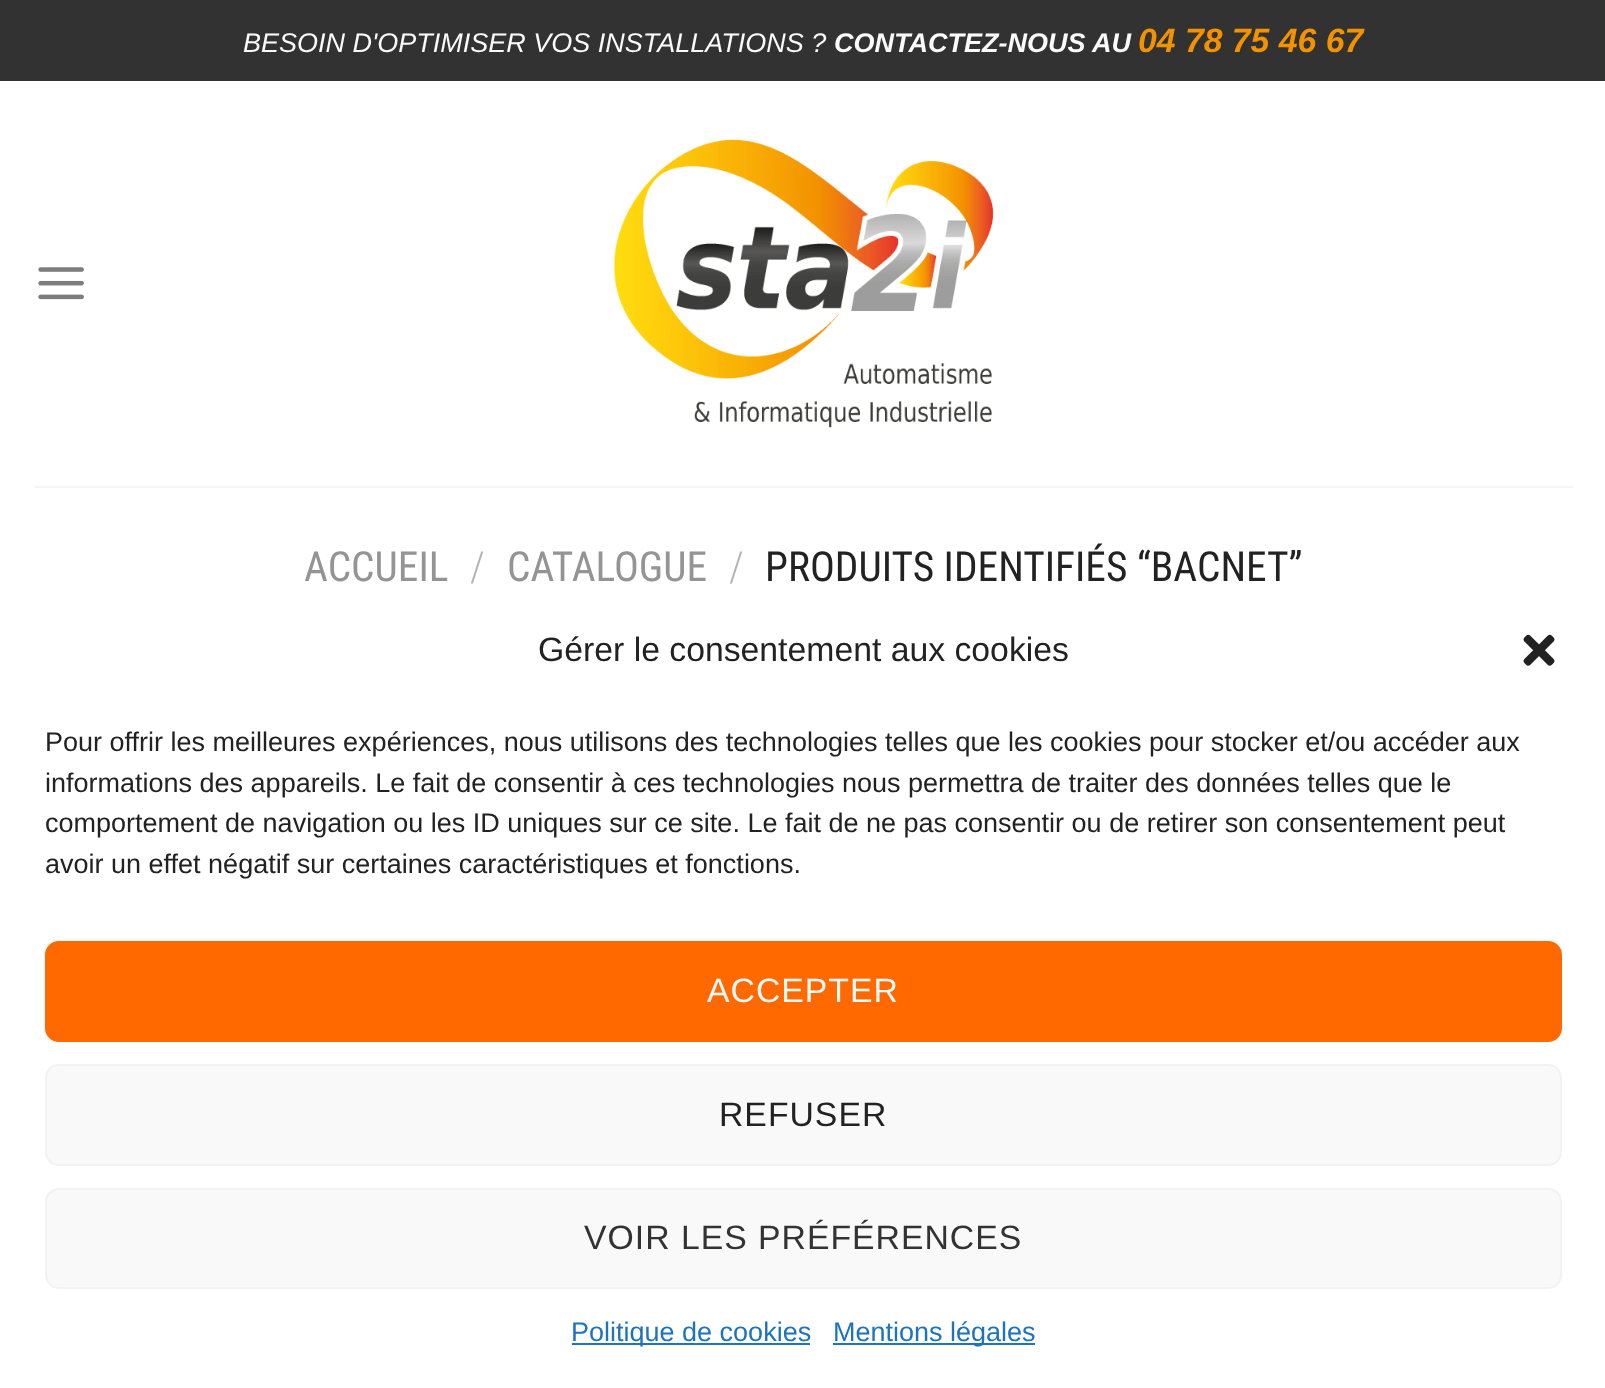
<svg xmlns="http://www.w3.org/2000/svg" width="1605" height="1388">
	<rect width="100%" height="100%" fill="#FFFFFF" />
	<rect x="0" y="0" width="1605" height="81" fill="#323232" />
	<text x="243" y="52" font-family="Liberation Sans" font-size="27" font-style="italic" fill="#FAFAFA">BESOIN D'OPTIMISER VOS INSTALLATIONS ?</text>
	<text x="834" y="52" font-family="Liberation Sans" font-size="27" font-weight="700" font-style="italic" fill="#FAFAFA">CONTACTEZ-NOUS AU</text>
	<text x="1138" y="52" font-family="Liberation Sans" font-size="33.75" font-weight="700" font-style="italic" fill="#F39200">04 78 75 46 67</text>
	<image x="38" y="267" width="46" height="33" href="assets/img1.png" />
	<image x="613" y="139" width="381" height="289" href="assets/img2.png" />
	<rect x="34" y="486" width="1539" height="2" fill="#F5F5F5" />
	<text x="304" y="581" font-family="Roboto Condensed" font-size="41.4" fill="#949494">ACCUEIL</text>
	<text x="470" y="581" font-family="Roboto Condensed" font-size="41.4" font-weight="300" fill="#B2B2B2">/</text>
	<text x="507" y="581" font-family="Roboto Condensed" font-size="41.4" fill="#949494">CATALOGUE</text>
	<text x="729" y="581" font-family="Roboto Condensed" font-size="41.4" font-weight="300" fill="#B2B2B2">/</text>
	<text x="765" y="581" font-family="Roboto Condensed" font-size="41.4" fill="#222222">PRODUITS IDENTIFIÉS “BACNET”</text>
	<text x="538" y="661" font-family="Liberation Sans" font-size="33.75" fill="#222222">Gérer le consentement aux cookies</text>
	<image x="1523" y="634" width="32" height="32" href="assets/img3.png" />
	<g font-family="Liberation Sans" font-size="27" fill="#222222">
		<text x="45" y="751">Pour offrir les meilleures expériences, nous utilisons des technologies telles que les cookies pour stocker et/ou accéder aux</text>
		<text x="45" y="792">informations des appareils. Le fait de consentir à ces technologies nous permettra de traiter des données telles que le</text>
		<text x="45" y="832">comportement de navigation ou les ID uniques sur ce site. Le fait de ne pas consentir ou de retirer son consentement peut</text>
		<text x="45" y="873">avoir un effet négatif sur certaines caractéristiques et fonctions.</text>
	</g>
	<rect x="46" y="942" width="1515" height="99" rx="13" fill="#FF6900" stroke="#FF6900" stroke-width="2" />
	<text x="707" y="1002" font-family="Liberation Sans" font-size="33.75" letter-spacing="1" fill="#FAFAFA">ACCEPTER</text>
	<rect x="46" y="1065" width="1515" height="100" rx="13" fill="#F9F9F9" stroke="#F2F2F2" stroke-width="2" />
	<text x="719" y="1126" font-family="Liberation Sans" font-size="33.75" letter-spacing="1" fill="#222222">REFUSER</text>
	<rect x="46" y="1189" width="1515" height="99" rx="13" fill="#F9F9F9" stroke="#F2F2F2" stroke-width="2" />
	<text x="584" y="1249" font-family="Liberation Sans" font-size="33.75" letter-spacing="1" fill="#333333">VOIR LES PRÉFÉRENCES</text>
	<rect x="572" y="1343" width="238" height="2" fill="#1E73BE" />
	<text x="571" y="1341" font-family="Liberation Sans" font-size="27" fill="#1E73BE">Politique de cookies</text>
	<rect x="833" y="1343" width="202" height="2" fill="#1E73BE" />
	<text x="833" y="1341" font-family="Liberation Sans" font-size="27" fill="#1E73BE">Mentions légales</text>
</svg>
